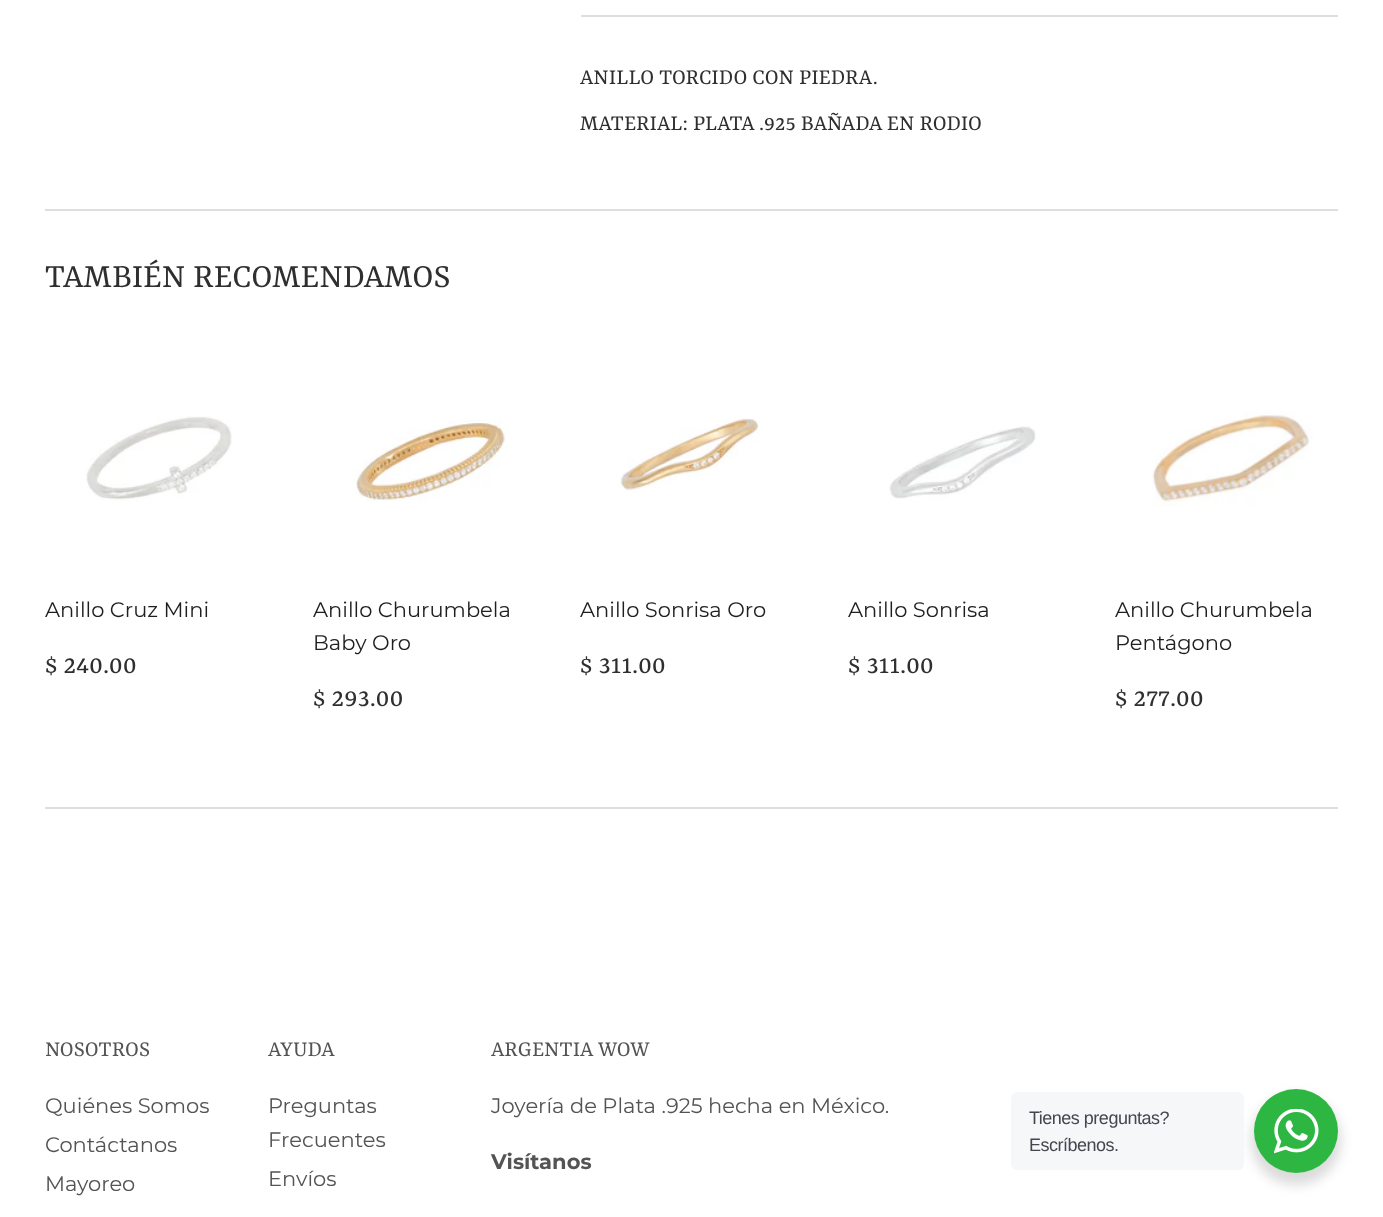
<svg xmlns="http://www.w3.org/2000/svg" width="1383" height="1217">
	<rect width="100%" height="100%" fill="#FFFFFF" />
	<rect x="581" y="15" width="757" height="2" fill="#DEDEDE" />
	<g font-family="Rasa" font-size="23.75" fill="#2F2F2F">
		<text x="580" y="84">ANILLO TORCIDO CON PIEDRA.</text>
		<text x="580" y="130">MATERIAL: PLATA .925 BAÑADA EN RODIO</text>
	</g>
	<rect x="45" y="209" width="1293" height="2" fill="#DEDEDE" />
	<text x="45" y="287" font-family="Rasa" font-size="36.4" fill="#2F2F2F">TAMBIÉN RECOMENDAMOS</text>
	<image x="86" y="416" width="146" height="86" href="assets/img1.png" />
	<text x="45" y="617" font-family="Montserrat" font-size="21" fill="#1F1F1F">Anillo Cruz Mini</text>
	<text x="45" y="673" font-family="Rasa" font-size="29" fill="#2F2F2F">$ 240.00</text>
	<image x="355" y="420" width="156" height="82" href="assets/img2.png" />
	<g font-family="Montserrat" font-size="21" fill="#1F1F1F">
		<text x="313" y="617">Anillo Churumbela</text>
		<text x="313" y="650">Baby Oro</text>
	</g>
	<text x="313" y="706" font-family="Rasa" font-size="29" fill="#2F2F2F">$ 293.00</text>
	<image x="620" y="418" width="139" height="74" href="assets/img3.png" />
	<text x="580" y="617" font-family="Montserrat" font-size="21" fill="#1F1F1F">Anillo Sonrisa Oro</text>
	<text x="580" y="673" font-family="Rasa" font-size="29" fill="#2F2F2F">$ 311.00</text>
	<image x="889" y="426" width="147" height="73" href="assets/img4.png" />
	<text x="848" y="617" font-family="Montserrat" font-size="21" fill="#1F1F1F">Anillo Sonrisa</text>
	<text x="848" y="673" font-family="Rasa" font-size="29" fill="#2F2F2F">$ 311.00</text>
	<image x="1152" y="412" width="162" height="95" href="assets/img5.png" />
	<g font-family="Montserrat" font-size="21" fill="#1F1F1F">
		<text x="1115" y="617">Anillo Churumbela</text>
		<text x="1115" y="650">Pentágono</text>
	</g>
	<text x="1115" y="706" font-family="Rasa" font-size="29" fill="#2F2F2F">$ 277.00</text>
	<rect x="45" y="807" width="1293" height="2" fill="#DEDEDE" />
	<text x="45" y="1056" font-family="Rasa" font-size="23.75" fill="#545454">NOSOTROS</text>
	<g font-family="Montserrat" font-size="21" fill="#545454">
		<text x="45" y="1113">Quiénes Somos</text>
		<text x="45" y="1152">Contáctanos</text>
		<text x="45" y="1191">Mayoreo</text>
	</g>
	<text x="268" y="1056" font-family="Rasa" font-size="23.75" fill="#545454">AYUDA</text>
	<g font-family="Montserrat" font-size="21" fill="#545454">
		<text x="268" y="1113">Preguntas</text>
		<text x="268" y="1147">Frecuentes</text>
		<text x="268" y="1186">Envíos</text>
	</g>
	<text x="491" y="1056" font-family="Rasa" font-size="23.75" fill="#545454">ARGENTIA WOW</text>
	<text x="491" y="1113" font-family="Montserrat" font-size="21" fill="#545454">Joyería de Plata .925 hecha en México.</text>
	<text x="491" y="1169" font-family="Montserrat" font-size="21" font-weight="700" fill="#545454">Visítanos</text>
	<rect x="1251" y="1095" width="90" height="90" rx="45" fill="#000000" fill-opacity="0.14" filter="blur(6px)" />
	<rect x="1011" y="1092" width="233" height="78" rx="6" fill="#F5F7F9" />
	<g font-family="Liberation Sans" font-size="18" letter-spacing="-0.5" fill="#43474E">
		<text x="1029" y="1124">Tienes preguntas?</text>
		<text x="1029" y="1151">Escríbenos.</text>
	</g>
	<circle cx="1296" cy="1131" r="42" fill="#2DB742" />
	<image x="1274" y="1109" width="45" height="45" href="assets/img6.png" />
</svg>
